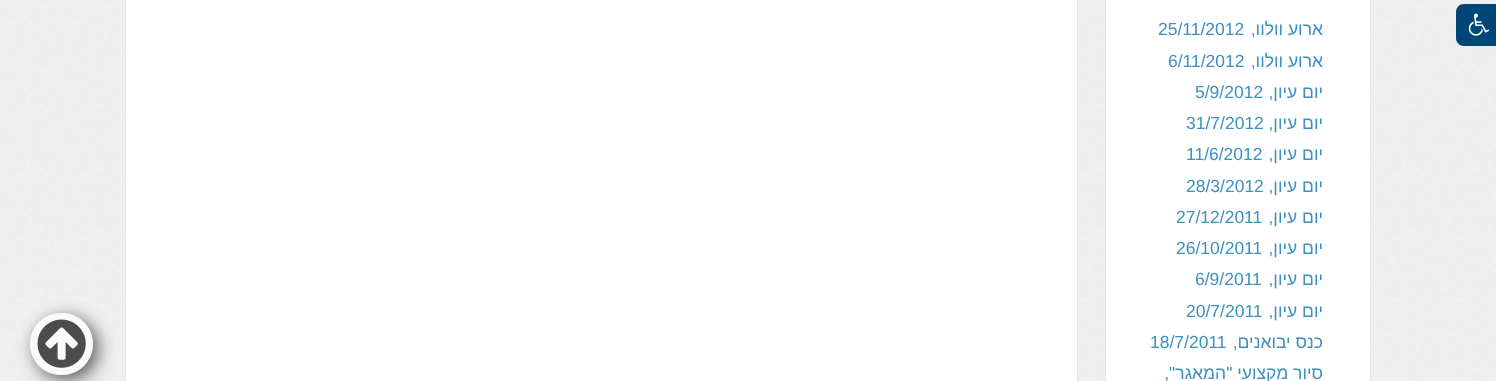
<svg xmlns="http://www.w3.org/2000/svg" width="1496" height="381">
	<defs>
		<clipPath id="clip1"><path d="M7 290H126V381H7ZM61 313H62C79 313 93 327 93 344C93 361 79 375 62 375H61C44 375 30 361 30 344C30 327 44 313 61 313Z" clip-rule="evenodd" /></clipPath>
	</defs>
	<rect width="100%" height="100%" fill="#FFFFFF" />
	<image x="0" y="0" width="1496" height="381" href="assets/img2.png" />
	<path d="M1464 4H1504V46H1464C1459.5 46 1456 42.5 1456 38V12C1456 7.5 1459.5 4 1464 4Z" fill="#004677" />
	<image x="1468" y="13" width="22" height="23" href="assets/img1.png" />
	<rect x="1105.5" y="-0.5" width="265" height="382" fill="#FFFFFF" stroke="#E3E3E3" />
	<text x="1323" y="35" font-family="Liberation Sans" font-size="17.5" direction="rtl" fill="#3D90C1">ארוע וולוו,</text>
	<text x="1158" y="35" font-family="Liberation Sans" font-size="17.5" fill="#3D90C1">25/11/2012</text>
	<text x="1323" y="67" font-family="Liberation Sans" font-size="17.5" direction="rtl" fill="#3D90C1">ארוע וולוו,</text>
	<text x="1168" y="67" font-family="Liberation Sans" font-size="17.5" fill="#3D90C1">6/11/2012</text>
	<text x="1323" y="98" font-family="Liberation Sans" font-size="17.5" direction="rtl" fill="#3D90C1">יום עיון,</text>
	<text x="1195" y="98" font-family="Liberation Sans" font-size="17.5" fill="#3D90C1">5/9/2012</text>
	<text x="1323" y="129" font-family="Liberation Sans" font-size="17.5" direction="rtl" fill="#3D90C1">יום עיון,</text>
	<text x="1186" y="129" font-family="Liberation Sans" font-size="17.5" fill="#3D90C1">31/7/2012</text>
	<text x="1323" y="160" font-family="Liberation Sans" font-size="17.5" direction="rtl" fill="#3D90C1">יום עיון,</text>
	<text x="1186" y="160" font-family="Liberation Sans" font-size="17.5" fill="#3D90C1">11/6/2012</text>
	<text x="1323" y="192" font-family="Liberation Sans" font-size="17.5" direction="rtl" fill="#3D90C1">יום עיון,</text>
	<text x="1186" y="192" font-family="Liberation Sans" font-size="17.5" fill="#3D90C1">28/3/2012</text>
	<text x="1323" y="223" font-family="Liberation Sans" font-size="17.5" direction="rtl" fill="#3D90C1">יום עיון,</text>
	<text x="1176" y="223" font-family="Liberation Sans" font-size="17.5" fill="#3D90C1">27/12/2011</text>
	<text x="1323" y="254" font-family="Liberation Sans" font-size="17.5" direction="rtl" fill="#3D90C1">יום עיון,</text>
	<text x="1176" y="254" font-family="Liberation Sans" font-size="17.5" fill="#3D90C1">26/10/2011</text>
	<text x="1323" y="285" font-family="Liberation Sans" font-size="17.5" direction="rtl" fill="#3D90C1">יום עיון,</text>
	<text x="1195" y="285" font-family="Liberation Sans" font-size="17.5" fill="#3D90C1">6/9/2011</text>
	<text x="1323" y="317" font-family="Liberation Sans" font-size="17.5" direction="rtl" fill="#3D90C1">יום עיון,</text>
	<text x="1186" y="317" font-family="Liberation Sans" font-size="17.5" fill="#3D90C1">20/7/2011</text>
	<text x="1323" y="348" font-family="Liberation Sans" font-size="17.5" direction="rtl" fill="#3D90C1">כנס יבואנים,</text>
	<text x="1150" y="348" font-family="Liberation Sans" font-size="17.5" fill="#3D90C1">18/7/2011</text>
	<text x="1323" y="379" font-family="Liberation Sans" font-size="17.5" direction="rtl" fill="#3D90C1">סיור מקצועי "המאגר",</text>
	<rect x="125.5" y="-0.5" width="952" height="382" fill="#FFFFFF" stroke="#E3E3E3" />
	<g clip-path="url(#clip1)">
		<rect x="35" y="318" width="63" height="62" rx="31" fill="#000000" fill-opacity="0.63" filter="blur(9px)" />
	</g>
	<rect x="30" y="313" width="63" height="62" rx="31" fill="#FFFFFF" fill-opacity="0.7" />
	<image x="37" y="319" width="49" height="49" href="assets/img3.png" />
</svg>
